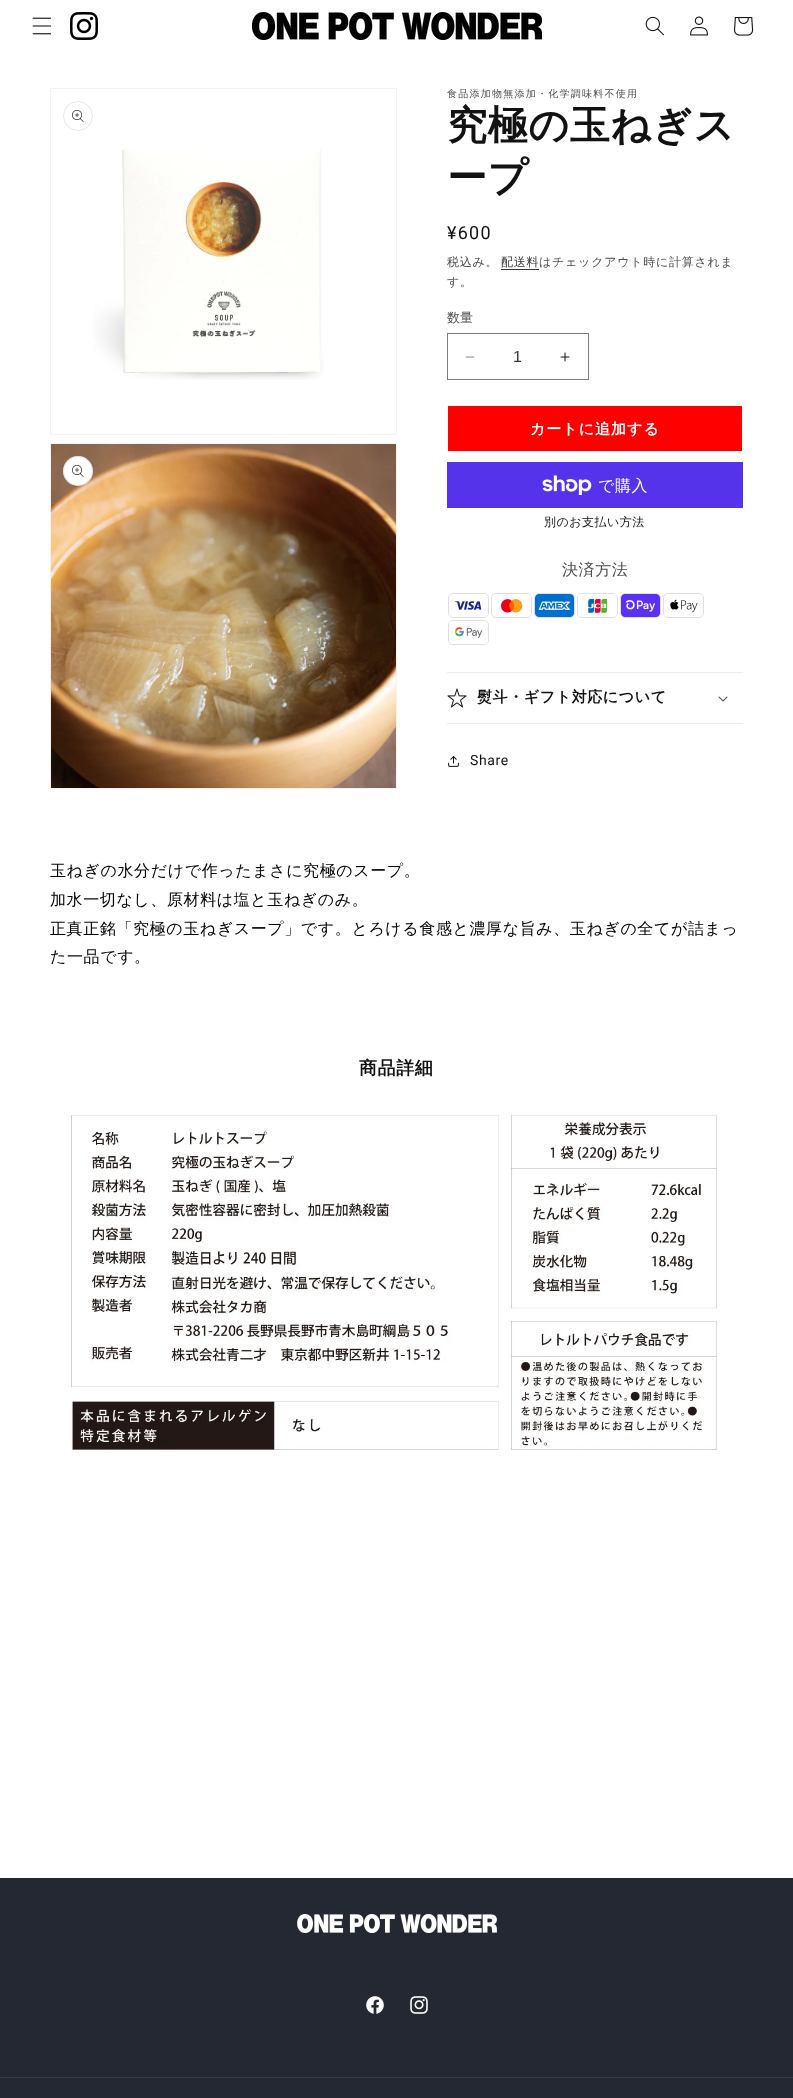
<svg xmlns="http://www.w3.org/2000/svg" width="793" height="2098">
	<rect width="100%" height="100%" fill="#FFFFFF" />
	<image x="32" y="17" width="20" height="18" href="assets/img1.png" />
	<image x="70" y="12" width="28" height="28" href="assets/img2.png" />
	<image x="252" y="12" width="290" height="28" href="assets/img3.png" />
	<image x="645" y="16" width="19" height="20" href="assets/img4.png" />
	<image x="690" y="16" width="18" height="20" href="assets/img5.png" />
	<image x="734" y="17" width="20" height="19" href="assets/img6.png" />
	<rect x="50.5" y="88.5" width="346" height="346" fill="none" stroke="#F3F3F3" />
	<circle cx="78" cy="116" r="14.5" fill="none" stroke="#E7E7E7" />
	<image x="72" y="110" width="12" height="12" href="assets/img7.png" />
	<image x="93" y="149" width="231" height="231" href="assets/img8.png" />
	<rect x="50.5" y="443.5" width="346" height="345" fill="none" stroke="#F3F3F3" />
	<image x="51" y="444" width="345" height="344" href="assets/img9.png" />
	<circle cx="78" cy="471" r="15" fill="#FFFFFF" />
	<circle cx="78" cy="471" r="14.5" fill="none" stroke="#121212" stroke-opacity="0.1" />
	<image x="72" y="465" width="12" height="12" href="assets/img7.png" />
	<text x="447" y="97" font-family="WenQuanYi Zen Hei" font-size="10" font-weight="500" letter-spacing="1.25" fill="#4D4D4D">食品添加物無添加・化学調味料不使用</text>
	<g font-family="WenQuanYi Zen Hei" font-size="40" font-weight="700" letter-spacing="0.6" fill="#121212">
		<text x="447" y="139">究極の玉ねぎス</text>
		<text x="447" y="191">ープ</text>
	</g>
	<text x="447" y="239" font-family="Roboto" font-size="18" letter-spacing="1.25" fill="#121212">¥600</text>
	<text x="447" y="266" font-family="WenQuanYi Zen Hei" font-size="12" font-weight="500" letter-spacing="0.75" fill="#4D4D4D">税込み。</text>
	<text x="501" y="266" font-family="WenQuanYi Zen Hei" font-size="12" font-weight="500" letter-spacing="0.75" fill="#363636">配送料</text>
	<rect x="501" y="269" width="38" height="1" fill="#363636" />
	<g font-family="WenQuanYi Zen Hei" font-size="12" font-weight="500" letter-spacing="0.75" fill="#4D4D4D">
		<text x="539" y="266">はチェックアウト時に計算されま</text>
		<text x="447" y="286">す。</text>
	</g>
	<text x="447" y="322" font-family="WenQuanYi Zen Hei" font-size="13" font-weight="500" fill="#4D4D4D">数量</text>
	<image x="465" y="356" width="10" height="2" href="assets/img10.png" />
	<image x="560" y="352" width="10" height="10" href="assets/img11.png" />
	<rect x="447.5" y="333.5" width="141" height="46" fill="none" stroke="#7D7D7D" />
	<text x="513" y="362" font-family="Liberation Sans" font-size="16" fill="#363636">1</text>
	<rect x="448" y="406" width="294" height="45" fill="#FF0000" />
	<text x="530" y="434" font-family="WenQuanYi Zen Hei" font-size="15" font-weight="700" letter-spacing="1" fill="#FFFFFF">カートに追加する</text>
	<rect x="447" y="462" width="296" height="46" fill="#5433EB" />
	<image x="542" y="475" width="50" height="20" href="assets/img12.png" />
	<text x="598" y="491" font-family="WenQuanYi Zen Hei" font-size="16" font-weight="500" letter-spacing="0.6" fill="#FFFFFF">で購入</text>
	<text x="544" y="526" font-family="WenQuanYi Zen Hei" font-size="12" font-weight="500" letter-spacing="0.5" fill="#121212">別のお支払い方法</text>
	<text x="562" y="575" font-family="WenQuanYi Zen Hei" font-size="16" font-weight="500" letter-spacing="0.6" fill="#4D4D4D">決済方法</text>
	<rect x="448.5" y="593.5" width="40" height="24" rx="4.5" fill="none" stroke="#DFDFDF" />
	<image x="449" y="594" width="39" height="23" href="assets/img13.png" />
	<rect x="491.5" y="593.5" width="40" height="24" rx="4.5" fill="none" stroke="#DFDFDF" />
	<image x="492" y="594" width="39" height="23" href="assets/img14.png" />
	<rect x="534.5" y="593.5" width="40" height="24" rx="4.5" fill="none" stroke="#DFDFDF" />
	<image x="535" y="594" width="39" height="23" href="assets/img15.png" />
	<rect x="577.5" y="593.5" width="40" height="24" rx="4.5" fill="none" stroke="#DFDFDF" />
	<image x="578" y="594" width="39" height="23" href="assets/img16.png" />
	<rect x="620.5" y="593.5" width="40" height="24" rx="4.5" fill="none" stroke="#DFDFDF" />
	<image x="621" y="594" width="39" height="23" href="assets/img17.png" />
	<rect x="663.5" y="593.5" width="40" height="24" rx="4.5" fill="none" stroke="#DFDFDF" />
	<image x="664" y="594" width="39" height="23" href="assets/img18.png" />
	<rect x="448.5" y="620.5" width="40" height="24" rx="4.5" fill="none" stroke="#DFDFDF" />
	<image x="449" y="621" width="39" height="23" href="assets/img19.png" />
	<rect x="447" y="672" width="296" height="1" fill="#ECECEC" />
	<rect x="447" y="723" width="296" height="1" fill="#ECECEC" />
	<image x="447" y="688" width="20" height="20" href="assets/img20.png" />
	<text x="477" y="702" font-family="WenQuanYi Zen Hei" font-size="15" font-weight="700" letter-spacing="0.6" fill="#121212">熨斗・ギフト対応について</text>
	<image x="718" y="696" width="10" height="6" href="assets/img21.png" />
	<image x="448" y="756" width="11" height="11" href="assets/img22.png" />
	<text x="470" y="765" font-family="Roboto" font-size="14" letter-spacing="0.6" fill="#121212">Share</text>
	<g font-family="WenQuanYi Zen Hei" font-size="16" font-weight="500" letter-spacing="0.6" fill="#000000">
		<text x="50" y="876">玉ねぎの水分だけで作ったまさに究極のスープ。</text>
		<text x="50" y="905">加水一切なし、原材料は塩と玉ねぎのみ。</text>
		<text x="50" y="934">正真正銘「究極の玉ねぎスープ」です。とろける食感と濃厚な旨み、玉ねぎの全てが詰まっ</text>
		<text x="50" y="962">た一品です。</text>
	</g>
	<text x="359" y="1074" font-family="WenQuanYi Zen Hei" font-size="18" font-weight="700" letter-spacing="0.6" fill="#121212">商品詳細</text>
	<image x="71" y="1114" width="647" height="336" href="assets/img23.png" />
	<rect x="0" y="1878" width="793" height="220" fill="#242833" />
	<image x="297" y="1914" width="200" height="19" href="assets/img24.png" />
	<image x="366" y="1996" width="18" height="18" href="assets/img25.png" />
	<image x="410" y="1996" width="18" height="18" href="assets/img26.png" />
	<rect x="0" y="2077" width="793" height="1" fill="#363943" />
</svg>
